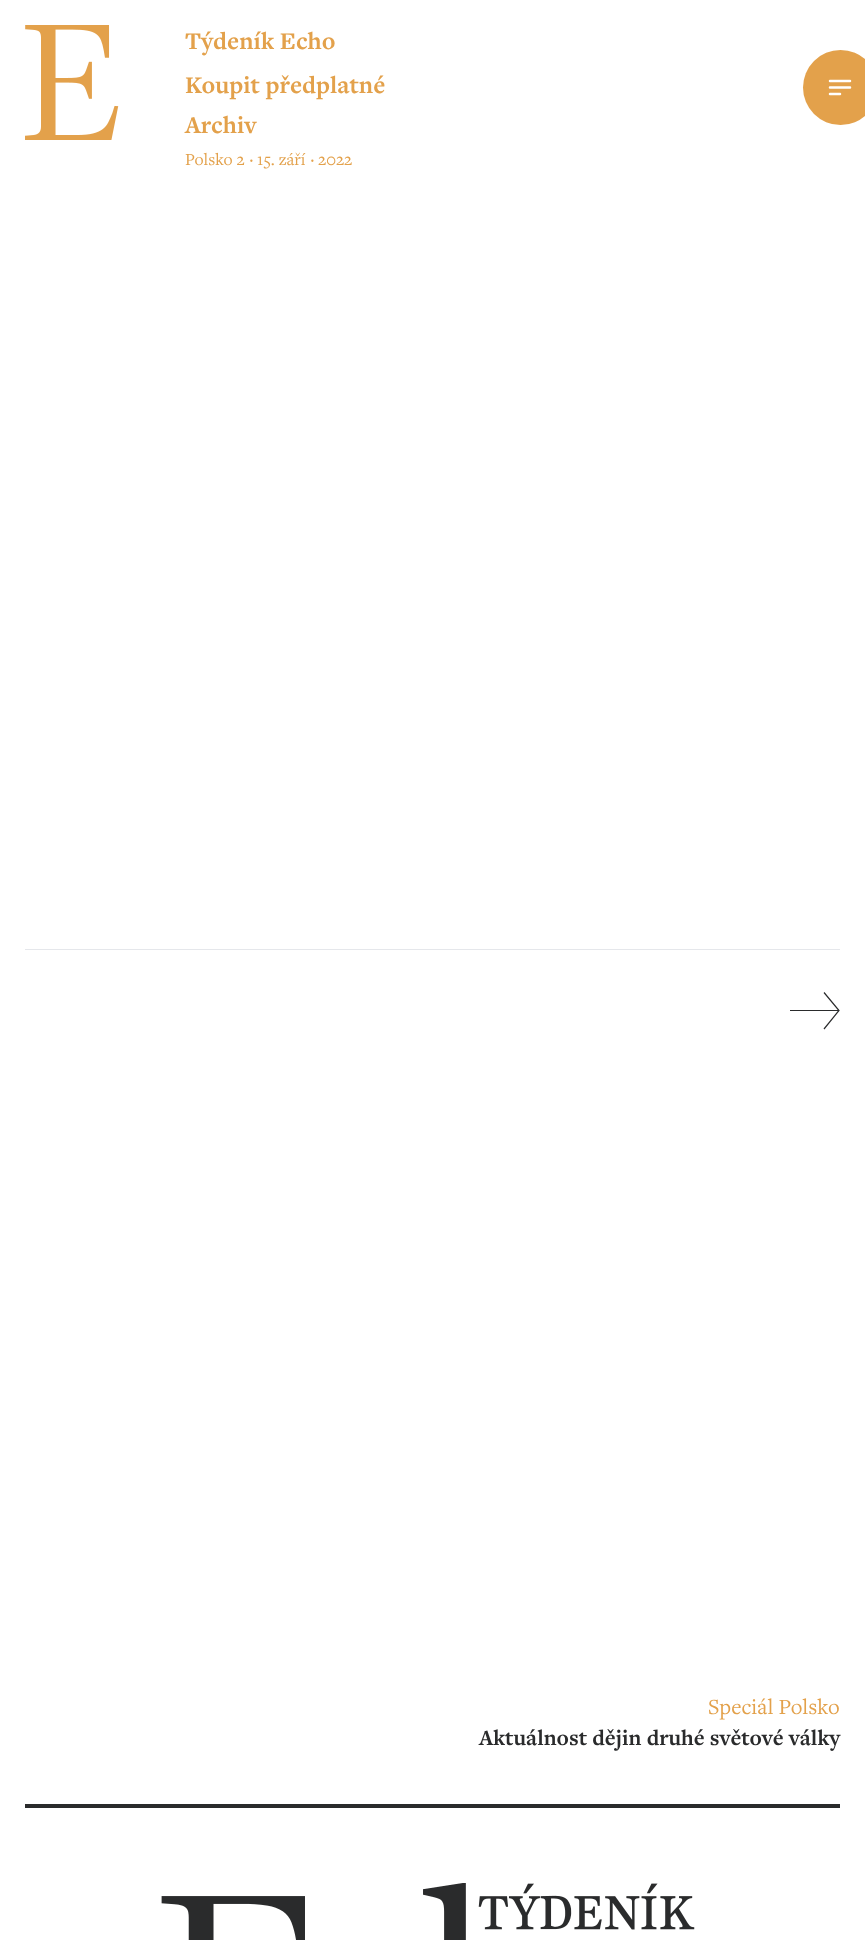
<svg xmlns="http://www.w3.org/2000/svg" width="865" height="1940">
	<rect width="100%" height="100%" fill="#FFFFFF" />
	<image x="25" y="25" width="94" height="115" href="assets/img1.png" />
	<g font-family="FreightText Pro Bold" font-size="25" font-weight="700" fill="#E3A14B">
		<text x="185" y="49">Týdeník Echo</text>
		<text x="185" y="93">Koupit předplatné</text>
		<text x="185" y="133">Archiv</text>
	</g>
	<text x="185" y="165" font-family="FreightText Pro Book" font-size="17.5" fill="#E3A14B">Polsko 2</text>
	<text x="249" y="165" font-family="Noto Sans" font-size="17.5" fill="#E3A14B">‧</text>
	<text x="257" y="165" font-family="FreightText Pro Book" font-size="17.5" fill="#E3A14B">15. září</text>
	<text x="310" y="165" font-family="Noto Sans" font-size="17.5" fill="#E3A14B">‧</text>
	<text x="318" y="165" font-family="FreightText Pro Book" font-size="17.5" fill="#E3A14B">2022</text>
	<circle cx="840.5" cy="87.5" r="37.5" fill="#E3A14B" />
	<path d="M830 81H850M830 87.5H850M830 94H840" fill="none" stroke="#FFFFFF" stroke-width="2.5" stroke-linecap="round" />
	<rect x="25" y="1804" width="815" height="4" fill="#2A2B2C" />
	<rect x="25" y="949" width="815" height="1" fill="#E5E7EB" />
	<path d="M824 992.5L839 1010.5L824 1029" fill="none" stroke="#2A2B2C" stroke-width="1.2" />
	<rect x="790" y="1010" width="49" height="1" fill="#2A2B2C" />
	<text x="708" y="1714" font-family="FreightText Pro Book" font-size="22.5" fill="#E3A14B">Speciál Polsko</text>
	<text x="479" y="1745" font-family="FreightText Pro Bold" font-size="22.5" font-weight="700" fill="#2A2B2C">Aktuálnost dějin druhé světové války</text>
	<image x="161" y="1883" width="534" height="57" href="assets/img2.png" />
</svg>
